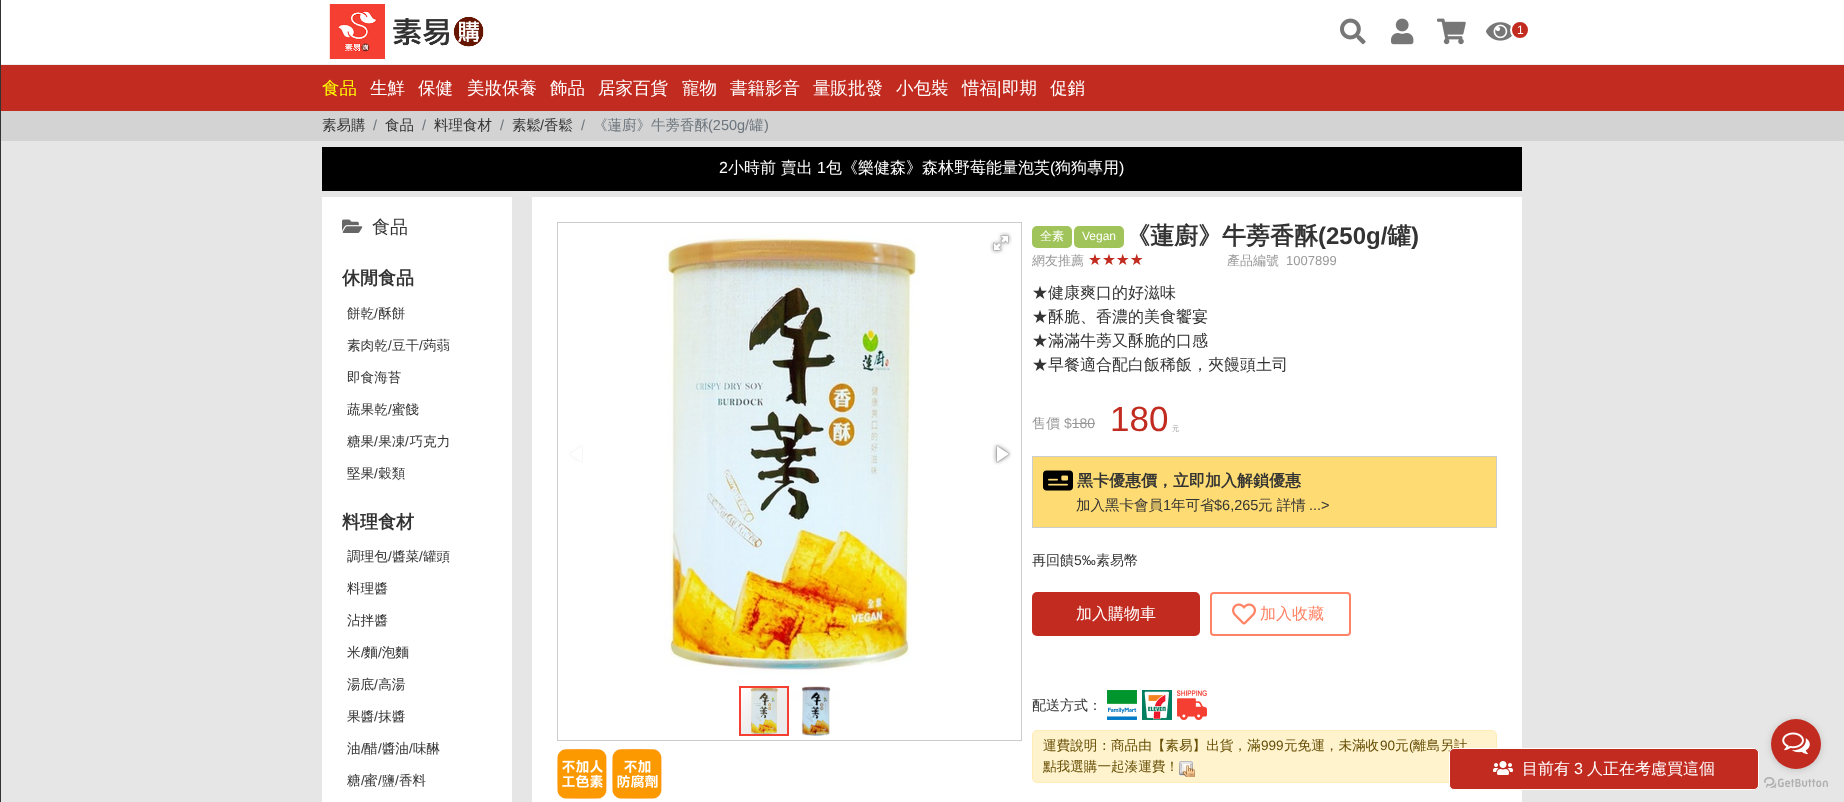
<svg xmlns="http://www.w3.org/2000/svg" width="1844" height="802">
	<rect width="100%" height="100%" fill="#E6E6E6" />
	<rect x="0" y="64" width="1844" height="1" fill="#EEEEEE" />
	<rect x="0" y="0" width="1" height="802" fill="#333333" />
	<rect x="1" y="0" width="1843" height="64" fill="#FFFFFF" />
	<image x="329" y="4" width="155" height="55" href="assets/img1.png" />
	<image x="1340" y="18" width="26" height="27" href="assets/img2.png" />
	<image x="1391" y="18" width="23" height="27" href="assets/img3.png" />
	<image x="1437" y="18" width="29" height="27" href="assets/img4.png" />
	<image x="1486" y="22" width="26" height="19" href="assets/img5.png" />
	<circle cx="1520" cy="30" r="9" fill="#C22B20" stroke="#FFFFFF" stroke-width="2" />
	<text x="1517" y="34" font-family="Liberation Sans" font-size="12" fill="#FFFFFF">1</text>
	<rect x="1" y="65" width="1843" height="46" fill="#C22B20" />
	<text x="322" y="94" font-family="WenQuanYi Zen Hei" font-size="17.5" font-weight="500" fill="#FFFF00">食品</text>
	<g font-family="WenQuanYi Zen Hei" font-size="17.5" font-weight="500" fill="#FFFFFF">
		<text x="370" y="94">生鮮</text>
		<text x="418" y="94">保健</text>
		<text x="467" y="94">美妝保養</text>
		<text x="550" y="94">飾品</text>
		<text x="598" y="94">居家百貨</text>
		<text x="682" y="94">寵物</text>
		<text x="730" y="94">書籍影音</text>
		<text x="813" y="94">量販批發</text>
		<text x="896" y="94">小包裝</text>
		<text x="962" y="94">惜福</text>
	</g>
	<text x="997" y="94" font-family="Liberation Sans" font-size="17.5" fill="#FFFFFF">|</text>
	<g font-family="WenQuanYi Zen Hei" font-size="17.5" font-weight="500" fill="#FFFFFF">
		<text x="1002" y="94">即期</text>
		<text x="1050" y="94">促銷</text>
	</g>
	<rect x="1" y="111" width="1843" height="30" fill="#D3D3D3" />
	<text x="322" y="130" font-family="WenQuanYi Zen Hei" font-size="14.5" font-weight="500" fill="#333333">素易購</text>
	<text x="373" y="130" font-family="Liberation Sans" font-size="14.5" fill="#6C757D">/</text>
	<text x="385" y="130" font-family="WenQuanYi Zen Hei" font-size="14.5" font-weight="500" fill="#333333">食品</text>
	<text x="422" y="130" font-family="Liberation Sans" font-size="14.5" fill="#6C757D">/</text>
	<text x="434" y="130" font-family="WenQuanYi Zen Hei" font-size="14.5" font-weight="500" fill="#333333">料理食材</text>
	<text x="500" y="130" font-family="Liberation Sans" font-size="14.5" fill="#6C757D">/</text>
	<text x="512" y="130" font-family="WenQuanYi Zen Hei" font-size="14.5" font-weight="500" fill="#333333">素鬆</text>
	<text x="540" y="130" font-family="Liberation Sans" font-size="14.5" fill="#333333">/</text>
	<text x="544" y="130" font-family="WenQuanYi Zen Hei" font-size="14.5" font-weight="500" fill="#333333">香鬆</text>
	<text x="581" y="130" font-family="Liberation Sans" font-size="14.5" fill="#6C757D">/</text>
	<text x="593" y="130" font-family="WenQuanYi Zen Hei" font-size="14.5" font-weight="500" fill="#6C757D">《蓮廚》牛蒡香酥</text>
	<text x="708" y="130" font-family="Liberation Sans" font-size="14.5" fill="#6C757D">(250g/</text>
	<text x="749" y="130" font-family="WenQuanYi Zen Hei" font-size="14.5" font-weight="500" fill="#6C757D">罐</text>
	<text x="764" y="130" font-family="Liberation Sans" font-size="14.5" fill="#6C757D">)</text>
	<rect x="322" y="147" width="1200" height="44" fill="#000000" />
	<text x="719" y="173" font-family="Liberation Sans" font-size="16" fill="#FFFFFF">2</text>
	<text x="728" y="173" font-family="WenQuanYi Zen Hei" font-size="16" font-weight="500" fill="#FFFFFF">小時前 賣出</text>
	<text x="817" y="173" font-family="Liberation Sans" font-size="16" fill="#FFFFFF">1</text>
	<text x="826" y="173" font-family="WenQuanYi Zen Hei" font-size="16" font-weight="500" fill="#FFFFFF">包《樂健森》森林野莓能量泡芙</text>
	<text x="1050" y="173" font-family="Liberation Sans" font-size="16" fill="#FFFFFF">(</text>
	<text x="1055" y="173" font-family="WenQuanYi Zen Hei" font-size="16" font-weight="500" fill="#FFFFFF">狗狗專用</text>
	<text x="1119" y="173" font-family="Liberation Sans" font-size="16" fill="#FFFFFF">)</text>
	<rect x="322" y="197" width="190" height="605" fill="#FFFFFF" />
	<image x="342" y="219" width="21" height="14" href="assets/img6.png" />
	<text x="372" y="233" font-family="WenQuanYi Zen Hei" font-size="18" font-weight="500" fill="#333333">食品</text>
	<text x="342" y="284" font-family="WenQuanYi Zen Hei" font-size="18" font-weight="700" fill="#333333">休閒食品</text>
	<text x="347" y="318" font-family="WenQuanYi Zen Hei" font-size="13.6" font-weight="500" fill="#333333">餅乾 酥餅</text>
	<text x="374" y="318" font-family="Liberation Sans" font-size="13.6" fill="#333333">/</text>
	<text x="347" y="350" font-family="WenQuanYi Zen Hei" font-size="13.6" font-weight="500" fill="#333333">素肉乾</text>
	<text x="388" y="350" font-family="Liberation Sans" font-size="13.6" fill="#333333">/</text>
	<text x="392" y="350" font-family="WenQuanYi Zen Hei" font-size="13.6" font-weight="500" fill="#333333">豆干</text>
	<text x="419" y="350" font-family="Liberation Sans" font-size="13.6" fill="#333333">/</text>
	<g font-family="WenQuanYi Zen Hei" font-size="13.6" font-weight="500" fill="#333333">
		<text x="423" y="350">蒟蒻</text>
		<text x="347" y="382">即食海苔</text>
		<text x="347" y="414">蔬果乾 蜜餞</text>
	</g>
	<text x="388" y="414" font-family="Liberation Sans" font-size="13.6" fill="#333333">/</text>
	<text x="347" y="446" font-family="WenQuanYi Zen Hei" font-size="13.6" font-weight="500" fill="#333333">糖果 果凍 巧克力</text>
	<g font-family="Liberation Sans" font-size="13.6" fill="#333333">
		<text x="374" y="446">/</text>
		<text x="405" y="446">/</text>
	</g>
	<text x="347" y="478" font-family="WenQuanYi Zen Hei" font-size="13.6" font-weight="500" fill="#333333">堅果 穀類</text>
	<text x="374" y="478" font-family="Liberation Sans" font-size="13.6" fill="#333333">/</text>
	<text x="342" y="528" font-family="WenQuanYi Zen Hei" font-size="18" font-weight="700" fill="#333333">料理食材</text>
	<text x="347" y="561" font-family="WenQuanYi Zen Hei" font-size="13.6" font-weight="500" fill="#333333">調理包</text>
	<text x="388" y="561" font-family="Liberation Sans" font-size="13.6" fill="#333333">/</text>
	<text x="392" y="561" font-family="WenQuanYi Zen Hei" font-size="13.6" font-weight="500" fill="#333333">醬菜</text>
	<text x="419" y="561" font-family="Liberation Sans" font-size="13.6" fill="#333333">/</text>
	<g font-family="WenQuanYi Zen Hei" font-size="13.6" font-weight="500" fill="#333333">
		<text x="423" y="561">罐頭</text>
		<text x="347" y="593">料理醬</text>
		<text x="347" y="625">沾拌醬</text>
		<text x="347" y="657">米</text>
	</g>
	<text x="361" y="657" font-family="Liberation Sans" font-size="13.6" fill="#333333">/</text>
	<text x="364" y="657" font-family="WenQuanYi Zen Hei" font-size="13.6" font-weight="500" fill="#333333">麵 泡麵</text>
	<text x="378" y="657" font-family="Liberation Sans" font-size="13.6" fill="#333333">/</text>
	<text x="347" y="689" font-family="WenQuanYi Zen Hei" font-size="13.6" font-weight="500" fill="#333333">湯底 高湯</text>
	<text x="374" y="689" font-family="Liberation Sans" font-size="13.6" fill="#333333">/</text>
	<text x="347" y="721" font-family="WenQuanYi Zen Hei" font-size="13.6" font-weight="500" fill="#333333">果醬 抹醬</text>
	<text x="374" y="721" font-family="Liberation Sans" font-size="13.6" fill="#333333">/</text>
	<text x="347" y="753" font-family="WenQuanYi Zen Hei" font-size="13.6" font-weight="500" fill="#333333">油</text>
	<text x="361" y="753" font-family="Liberation Sans" font-size="13.6" fill="#333333">/</text>
	<text x="364" y="753" font-family="WenQuanYi Zen Hei" font-size="13.6" font-weight="500" fill="#333333">醋 醬油 味醂</text>
	<g font-family="Liberation Sans" font-size="13.6" fill="#333333">
		<text x="378" y="753">/</text>
		<text x="409" y="753">/</text>
	</g>
	<text x="347" y="785" font-family="WenQuanYi Zen Hei" font-size="13.6" font-weight="500" fill="#333333">糖</text>
	<text x="361" y="785" font-family="Liberation Sans" font-size="13.6" fill="#333333">/</text>
	<text x="364" y="785" font-family="WenQuanYi Zen Hei" font-size="13.6" font-weight="500" fill="#333333">蜜 鹽</text>
	<text x="395" y="785" font-family="Liberation Sans" font-size="13.6" fill="#333333">/</text>
	<text x="399" y="785" font-family="WenQuanYi Zen Hei" font-size="13.6" font-weight="500" fill="#333333">香料</text>
	<text x="378" y="785" font-family="Liberation Sans" font-size="13.6" fill="#333333">/</text>
	<rect x="532" y="197" width="990" height="605" fill="#FFFFFF" />
	<rect x="557.5" y="222.5" width="464" height="518" fill="none" stroke="#CCCCCC" />
	<image x="663" y="234" width="256" height="440" href="assets/img7.png" />
	<image x="990" y="232" width="22" height="22" href="assets/img8.png" />
	<image x="569" y="445" width="14" height="18" href="assets/img9.png" />
	<image x="992" y="443" width="20" height="22" href="assets/img10.png" />
	<image x="741" y="688" width="46" height="46" href="assets/img12.png" />
	<rect x="740" y="687" width="48" height="48" fill="none" stroke="#F53F32" stroke-width="2" />
	<image x="791" y="686" width="50" height="50" href="assets/img11.png" />
	<image x="557" y="749" width="50" height="50" href="assets/img13.png" />
	<image x="612" y="749" width="50" height="50" href="assets/img14.png" />
	<rect x="1032" y="226" width="40" height="22" rx="5" fill="#A1C45A" />
	<text x="1040" y="240" font-family="WenQuanYi Zen Hei" font-size="12" font-weight="500" fill="#FFFFFF">全素</text>
	<rect x="1074" y="226" width="50" height="22" rx="5" fill="#A1C45A" />
	<text x="1082" y="240" font-family="Liberation Sans" font-size="12" fill="#FFFFFF">Vegan</text>
	<text x="1126" y="244" font-family="WenQuanYi Zen Hei" font-size="24" font-weight="700" fill="#333333">《蓮廚》牛蒡香酥</text>
	<text x="1318" y="244" font-family="Liberation Sans" font-size="24" font-weight="700" fill="#333333">(250g/</text>
	<text x="1387" y="244" font-family="WenQuanYi Zen Hei" font-size="24" font-weight="700" fill="#333333">罐</text>
	<text x="1411" y="244" font-family="Liberation Sans" font-size="24" font-weight="700" fill="#333333">)</text>
	<text x="1032" y="265" font-family="WenQuanYi Zen Hei" font-size="13" font-weight="500" fill="#999999">網友推薦</text>
	<text x="1088" y="265" font-family="DejaVu Sans" font-size="15.5" fill="#C22B20">★★★★</text>
	<text x="1227" y="265" font-family="WenQuanYi Zen Hei" font-size="13" font-weight="500" fill="#999999">產品編號</text>
	<text x="1286" y="265" font-family="Liberation Sans" font-size="13" fill="#999999">1007899</text>
	<g font-family="WenQuanYi Zen Hei" font-size="16" font-weight="500" fill="#333333">
		<text x="1032" y="298">★健康爽口的好滋味</text>
		<text x="1032" y="322">★酥脆、香濃的美食饗宴</text>
		<text x="1032" y="346">★滿滿牛蒡又酥脆的口感</text>
		<text x="1032" y="370">★早餐適合配白飯稀飯，夾饅頭土司</text>
	</g>
	<text x="1032" y="428" font-family="WenQuanYi Zen Hei" font-size="14" font-weight="500" fill="#999999">售價</text>
	<text x="1064" y="428" font-family="Liberation Sans" font-size="14" fill="#999999">$180</text>
	<rect x="1072" y="423" width="23" height="1" fill="#999999" />
	<text x="1110" y="431" font-family="Liberation Sans" font-size="35" fill="#C22B20">180</text>
	<text x="1172" y="431" font-family="WenQuanYi Zen Hei" font-size="7" font-weight="500" fill="#999999">元</text>
	<rect x="1032.5" y="456.5" width="464" height="71" fill="#FFDC73" stroke="#CCCCCC" />
	<image x="1043" y="470" width="30" height="21" href="assets/img15.png" />
	<text x="1077" y="486" font-family="WenQuanYi Zen Hei" font-size="16" font-weight="700" fill="#333333">黑卡優惠價，立即加入解鎖優惠</text>
	<text x="1076" y="510" font-family="WenQuanYi Zen Hei" font-size="14.5" font-weight="500" fill="#333333">加入黑卡會員</text>
	<text x="1163" y="510" font-family="Liberation Sans" font-size="14.5" fill="#333333">1</text>
	<text x="1171" y="510" font-family="WenQuanYi Zen Hei" font-size="14.5" font-weight="500" fill="#333333">年可省</text>
	<text x="1214" y="510" font-family="Liberation Sans" font-size="14.5" fill="#333333">$6,265</text>
	<text x="1258" y="510" font-family="WenQuanYi Zen Hei" font-size="14.5" font-weight="500" fill="#333333">元 詳情</text>
	<text x="1309" y="510" font-family="Liberation Sans" font-size="14.5" fill="#333333">...&gt;</text>
	<text x="1032" y="565" font-family="WenQuanYi Zen Hei" font-size="14" font-weight="500" fill="#333333">再回饋</text>
	<text x="1074" y="565" font-family="Liberation Sans" font-size="14" fill="#333333">5‰</text>
	<text x="1096" y="565" font-family="WenQuanYi Zen Hei" font-size="14" font-weight="500" fill="#333333">素易幣</text>
	<rect x="1032" y="592" width="168" height="44" rx="5" fill="#C22B20" />
	<text x="1076" y="619" font-family="WenQuanYi Zen Hei" font-size="16" font-weight="500" fill="#FFFFFF">加入購物車</text>
	<rect x="1211" y="593" width="139" height="42" rx="3" fill="none" stroke="#FF8364" stroke-width="2" />
	<image x="1232" y="603" width="24" height="22" href="assets/img16.png" />
	<text x="1260" y="619" font-family="WenQuanYi Zen Hei" font-size="16" font-weight="500" fill="#FF8364">加入收藏</text>
	<text x="1032" y="710" font-family="WenQuanYi Zen Hei" font-size="14" font-weight="500" fill="#333333">配送方式：</text>
	<image x="1107" y="690" width="30" height="30" href="assets/img17.png" />
	<image x="1142" y="690" width="30" height="30" href="assets/img18.png" />
	<image x="1177" y="690" width="30" height="30" href="assets/img19.png" />
	<rect x="1032.5" y="730.5" width="464" height="52" rx="4.5" fill="#FFF3CD" stroke="#FFECB5" />
	<text x="1043" y="750" font-family="WenQuanYi Zen Hei" font-size="13.6" font-weight="500" fill="#664D03">運費說明：商品由【素易】出貨，滿</text>
	<text x="1261" y="750" font-family="Liberation Sans" font-size="13.6" fill="#664D03">999</text>
	<text x="1284" y="750" font-family="WenQuanYi Zen Hei" font-size="13.6" font-weight="500" fill="#664D03">元免運，未滿收</text>
	<text x="1380" y="750" font-family="Liberation Sans" font-size="13.6" fill="#664D03">90</text>
	<text x="1395" y="750" font-family="WenQuanYi Zen Hei" font-size="13.6" font-weight="500" fill="#664D03">元</text>
	<text x="1409" y="750" font-family="Liberation Sans" font-size="13.6" fill="#664D03">(</text>
	<g font-family="WenQuanYi Zen Hei" font-size="13.6" font-weight="500" fill="#664D03">
		<text x="1413" y="750">離島另計</text>
		<text x="1043" y="771">點我選購一起湊運費！</text>
	</g>
	<image x="1179" y="761" width="16" height="16" href="assets/img20.png" />
	<rect x="1449.5" y="748.5" width="309" height="41" rx="4.5" fill="#C22B20" stroke="#FFFFFF" />
	<image x="1493" y="761" width="20" height="14" href="assets/img21.png" />
	<text x="1522" y="774" font-family="WenQuanYi Zen Hei" font-size="16" font-weight="500" fill="#FFFFFF">目前有</text>
	<text x="1574" y="774" font-family="Liberation Sans" font-size="16" fill="#FFFFFF">3</text>
	<text x="1587" y="774" font-family="WenQuanYi Zen Hei" font-size="16" font-weight="500" fill="#FFFFFF">人正在考慮買這個</text>
	<image x="1764" y="777" width="64" height="11" href="assets/img23.png" />
	<rect x="1771" y="720" width="50" height="50" rx="25" fill="#888888" fill-opacity="0.4" filter="blur(3.5px)" />
	<circle cx="1796" cy="744" r="25" fill="#C22B20" />
	<image x="1782" y="732" width="28" height="23" href="assets/img22.png" />
</svg>
